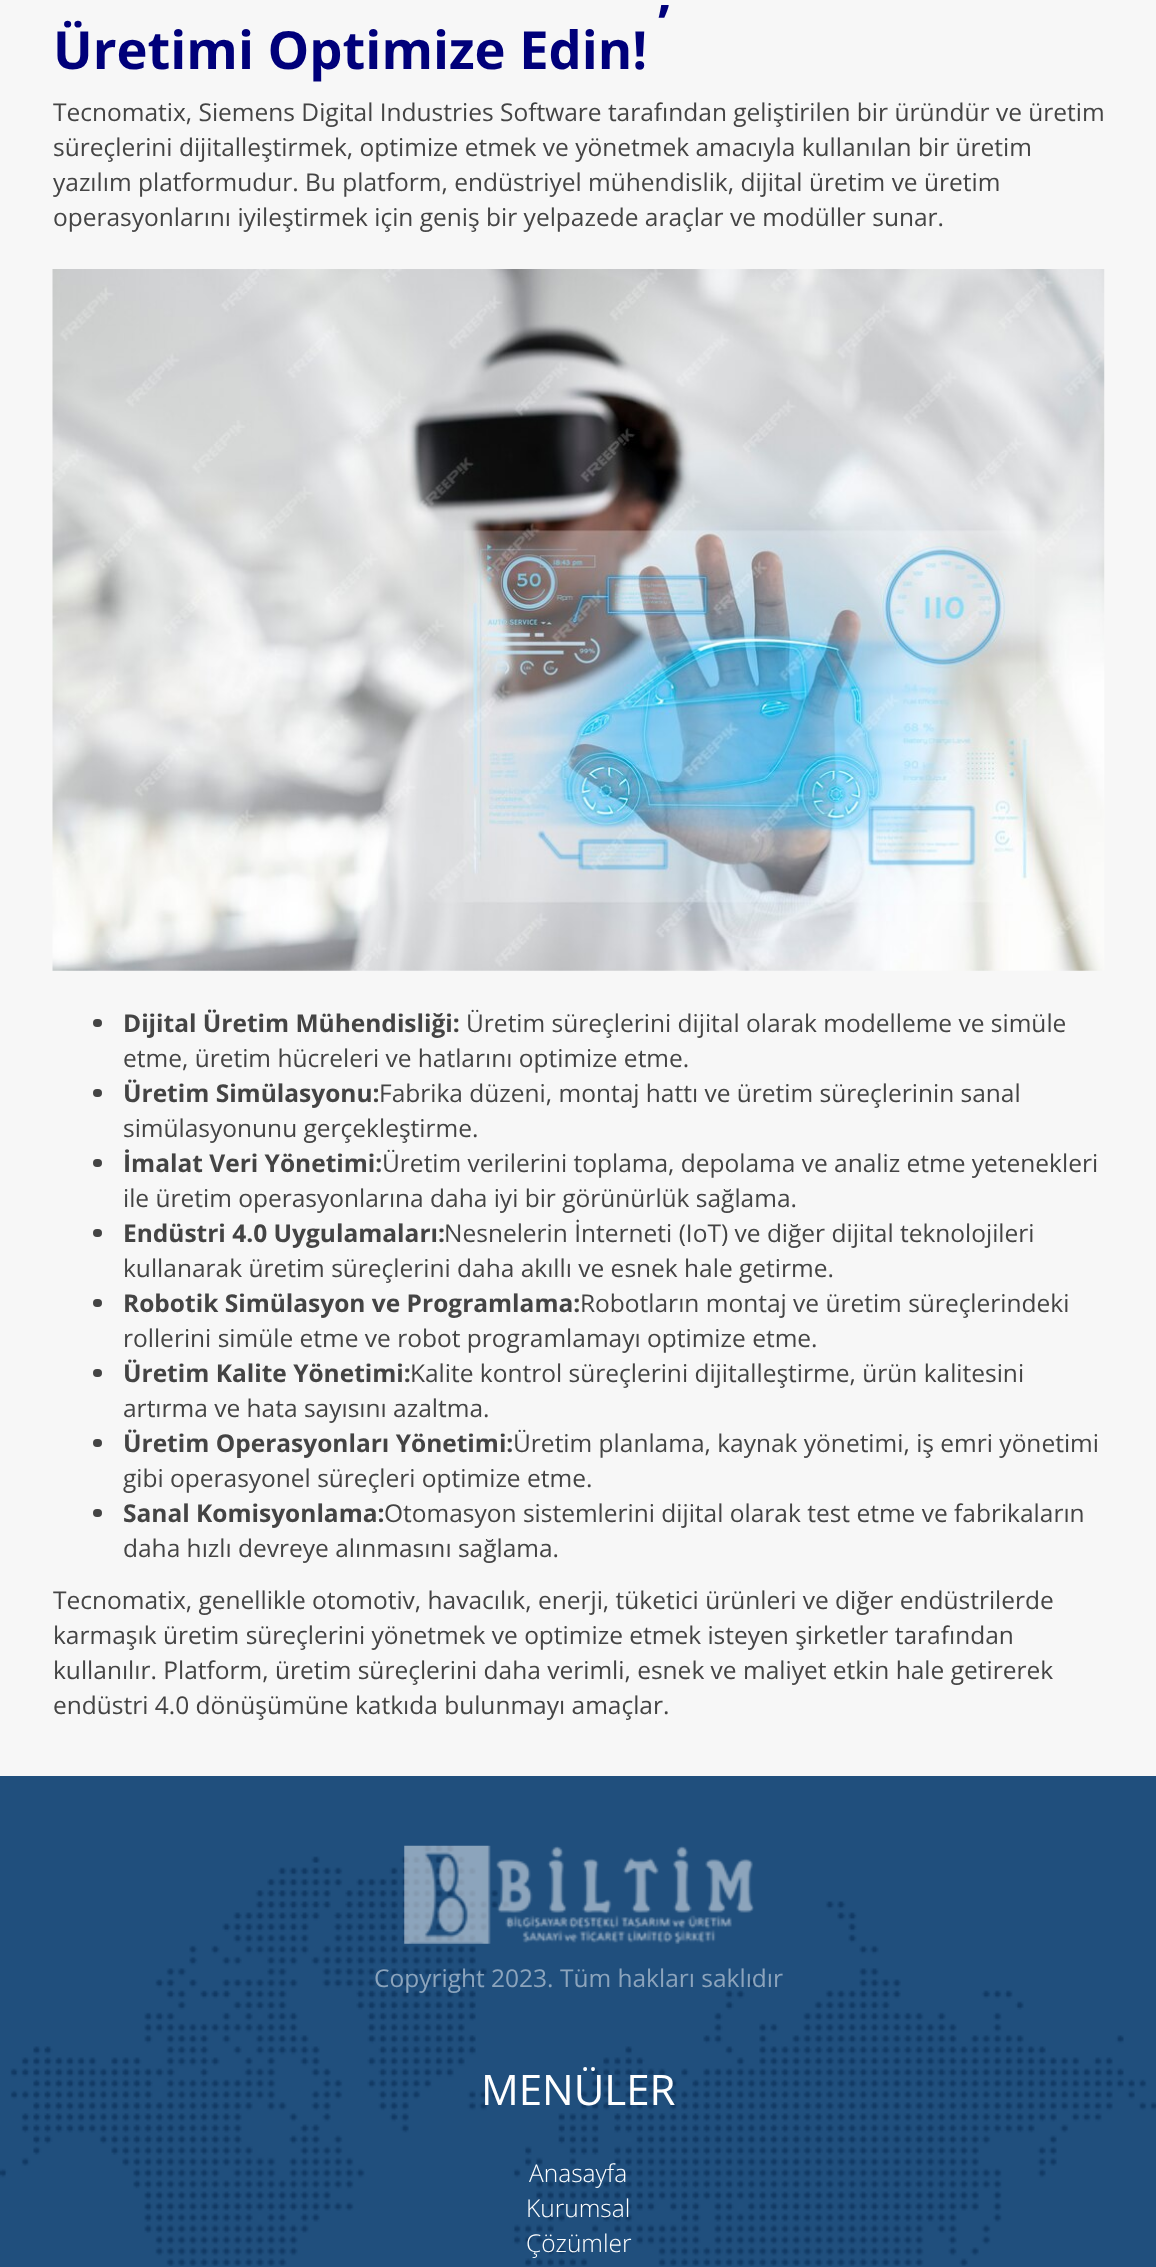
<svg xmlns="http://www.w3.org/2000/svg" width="1156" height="2267">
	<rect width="100%" height="100%" fill="#F7F7F7" />
	<g font-family="Open Sans" font-size="52.5" font-weight="700" fill="#00007A">
		<text x="657" y="11">,</text>
		<text x="53" y="69">Üretimi Optimize Edin!</text>
	</g>
	<g font-family="Open Sans" font-size="24.5" fill="#444444">
		<text x="53" y="121">Tecnomatix, Siemens Digital Industries Software tarafından geliştirilen bir üründür ve üretim</text>
		<text x="53" y="156">süreçlerini dijitalleştirmek, optimize etmek ve yönetmek amacıyla kullanılan bir üretim</text>
		<text x="53" y="191">yazılım platformudur. Bu platform, endüstriyel mühendislik, dijital üretim ve üretim</text>
		<text x="53" y="226">operasyonlarını iyileştirmek için geniş bir yelpazede araçlar ve modüller sunar.</text>
	</g>
	<image x="52" y="269" width="1053" height="702" href="assets/img1.png" />
	<rect x="93" y="1019" width="9" height="8" rx="4" fill="#444444" />
	<text x="123" y="1032" font-family="Open Sans" font-size="24.5" font-weight="700" fill="#444444">Dijital Üretim Mühendisliği:</text>
	<g font-family="Open Sans" font-size="24.5" fill="#444444">
		<text x="466" y="1032">Üretim süreçlerini dijital olarak modelleme ve simüle</text>
		<text x="123" y="1067">etme, üretim hücreleri ve hatlarını optimize etme.</text>
	</g>
	<rect x="93" y="1089" width="9" height="8" rx="4" fill="#444444" />
	<text x="123" y="1102" font-family="Open Sans" font-size="24.5" font-weight="700" fill="#444444">Üretim Simülasyonu:</text>
	<g font-family="Open Sans" font-size="24.5" fill="#444444">
		<text x="379" y="1102">Fabrika düzeni, montaj hattı ve üretim süreçlerinin sanal</text>
		<text x="123" y="1137">simülasyonunu gerçekleştirme.</text>
	</g>
	<rect x="93" y="1159" width="9" height="8" rx="4" fill="#444444" />
	<text x="123" y="1172" font-family="Open Sans" font-size="24.5" font-weight="700" fill="#444444">İmalat Veri Yönetimi:</text>
	<g font-family="Open Sans" font-size="24.5" fill="#444444">
		<text x="382" y="1172">Üretim verilerini toplama, depolama ve analiz etme yetenekleri</text>
		<text x="123" y="1207">ile üretim operasyonlarına daha iyi bir görünürlük sağlama.</text>
	</g>
	<rect x="93" y="1229" width="9" height="8" rx="4" fill="#444444" />
	<text x="123" y="1242" font-family="Open Sans" font-size="24.5" font-weight="700" fill="#444444">Endüstri 4.0 Uygulamaları:</text>
	<g font-family="Open Sans" font-size="24.5" fill="#444444">
		<text x="444" y="1242">Nesnelerin İnterneti (IoT) ve diğer dijital teknolojileri</text>
		<text x="123" y="1277">kullanarak üretim süreçlerini daha akıllı ve esnek hale getirme.</text>
	</g>
	<rect x="93" y="1299" width="9" height="8" rx="4" fill="#444444" />
	<text x="123" y="1312" font-family="Open Sans" font-size="24.5" font-weight="700" fill="#444444">Robotik Simülasyon ve Programlama:</text>
	<g font-family="Open Sans" font-size="24.5" fill="#444444">
		<text x="580" y="1312">Robotların montaj ve üretim süreçlerindeki</text>
		<text x="123" y="1347">rollerini simüle etme ve robot programlamayı optimize etme.</text>
	</g>
	<rect x="93" y="1369" width="9" height="8" rx="4" fill="#444444" />
	<text x="123" y="1382" font-family="Open Sans" font-size="24.5" font-weight="700" fill="#444444">Üretim Kalite Yönetimi:</text>
	<g font-family="Open Sans" font-size="24.5" fill="#444444">
		<text x="410" y="1382">Kalite kontrol süreçlerini dijitalleştirme, ürün kalitesini</text>
		<text x="123" y="1417">artırma ve hata sayısını azaltma.</text>
	</g>
	<rect x="93" y="1439" width="9" height="8" rx="4" fill="#444444" />
	<text x="123" y="1452" font-family="Open Sans" font-size="24.5" font-weight="700" fill="#444444">Üretim Operasyonları Yönetimi:</text>
	<g font-family="Open Sans" font-size="24.5" fill="#444444">
		<text x="513" y="1452">Üretim planlama, kaynak yönetimi, iş emri yönetimi</text>
		<text x="123" y="1487">gibi operasyonel süreçleri optimize etme.</text>
	</g>
	<rect x="93" y="1509" width="9" height="8" rx="4" fill="#444444" />
	<text x="123" y="1522" font-family="Open Sans" font-size="24.5" font-weight="700" fill="#444444">Sanal Komisyonlama:</text>
	<g font-family="Open Sans" font-size="24.5" fill="#444444">
		<text x="384" y="1522">Otomasyon sistemlerini dijital olarak test etme ve fabrikaların</text>
		<text x="123" y="1557">daha hızlı devreye alınmasını sağlama.</text>
		<text x="53" y="1609">Tecnomatix, genellikle otomotiv, havacılık, enerji, tüketici ürünleri ve diğer endüstrilerde</text>
		<text x="53" y="1644">karmaşık üretim süreçlerini yönetmek ve optimize etmek isteyen şirketler tarafından</text>
		<text x="53" y="1679">kullanılır. Platform, üretim süreçlerini daha verimli, esnek ve maliyet etkin hale getirerek</text>
		<text x="53" y="1714">endüstri 4.0 dönüşümüne katkıda bulunmayı amaçlar.</text>
	</g>
	<rect x="0" y="1776" width="1156" height="491" fill="#204F7D" />
	<image x="0" y="1845" width="1156" height="421" href="assets/img2.png" />
	<image x="404" y="1845" width="350" height="99" href="assets/img3.png" />
	<text x="374" y="1987" font-family="Open Sans" font-size="24.5" fill="#8CA4BC">Copyright 2023. Tüm hakları saklıdır</text>
	<text x="481" y="2105" font-family="Open Sans" font-size="42" fill="#FFFFFF">MENÜLER</text>
	<g font-family="Open Sans" font-size="24.5" font-weight="300" fill="#FFFFFF">
		<text x="529" y="2182">Anasayfa</text>
		<text x="526" y="2217">Kurumsal</text>
		<text x="526" y="2252">Çözümler</text>
	</g>
</svg>
